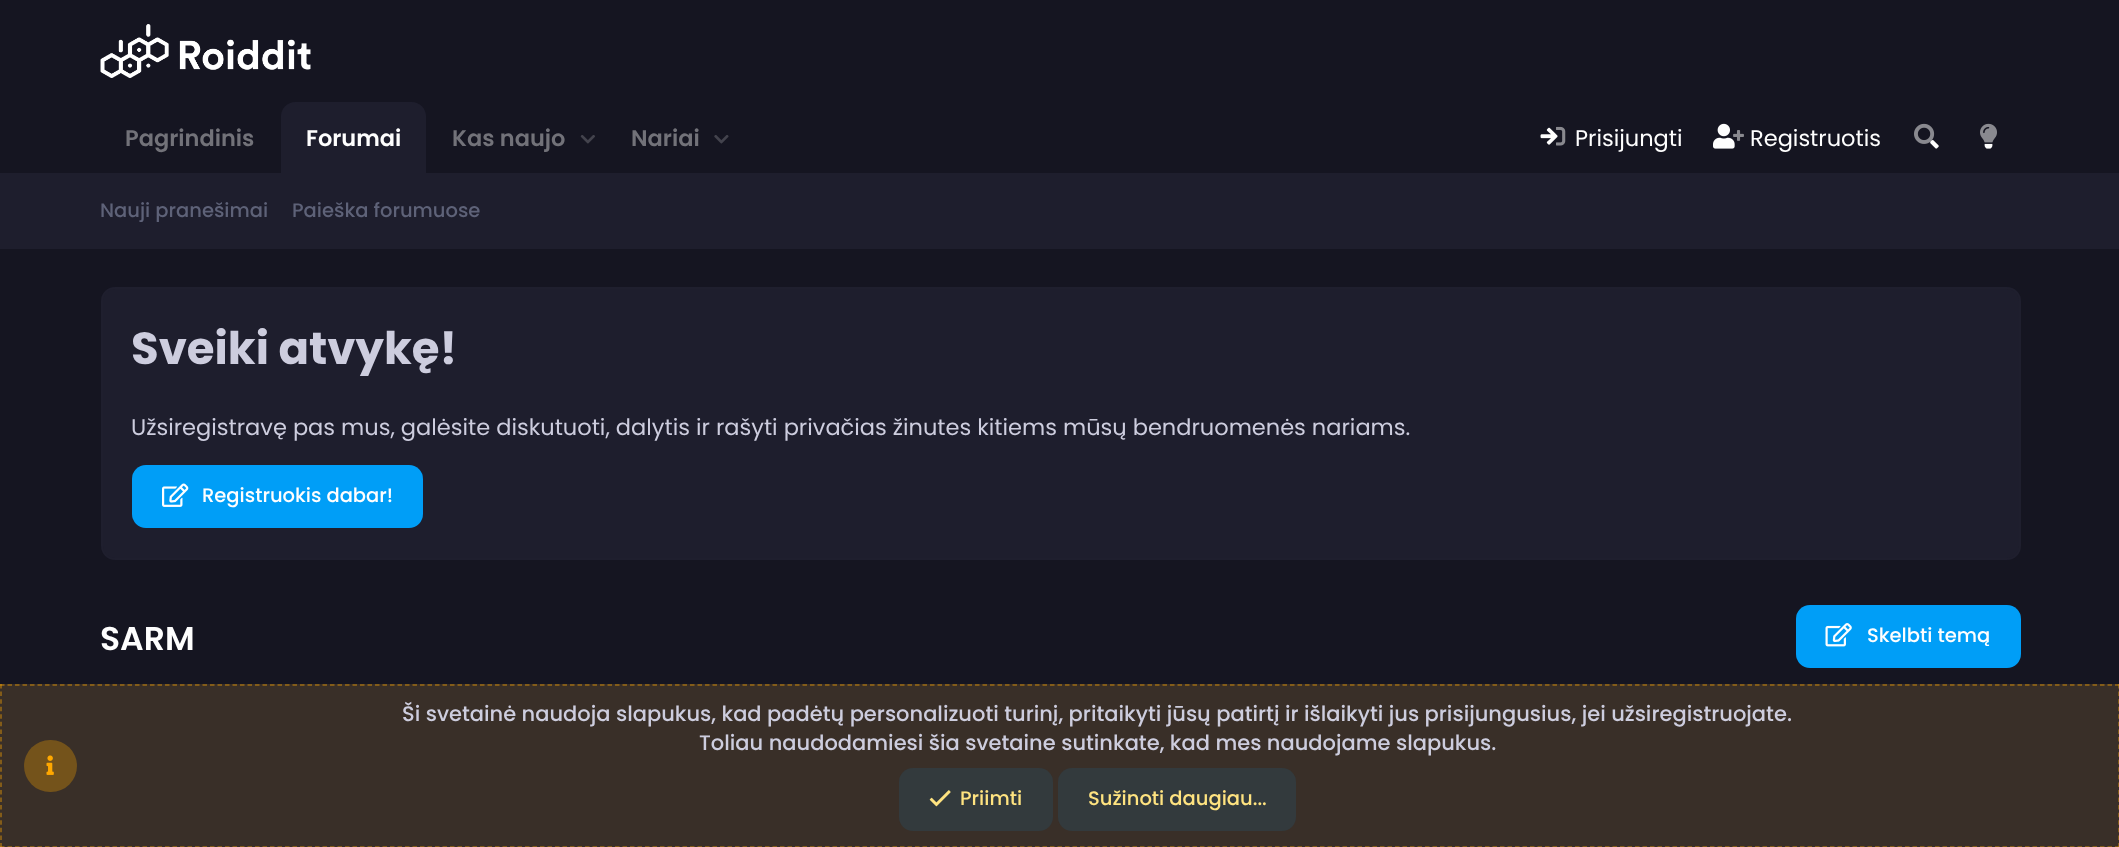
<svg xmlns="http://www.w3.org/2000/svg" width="2119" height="847">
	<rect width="100%" height="100%" fill="#151521" />
	<image x="100" y="24" width="211" height="54" href="assets/img1.png" />
	<text x="125" y="146" font-family="Poppins" font-size="22.5" font-weight="600" fill="#727279">Pagrindinis</text>
	<path d="M295 102H412C419.5 102 426 108.5 426 116V173H281V116C281 108.5 287.5 102 295 102Z" fill="#1E1E2D" />
	<text x="306" y="146" font-family="Poppins" font-size="22.5" font-weight="600" fill="#FEFEFE">Forumai</text>
	<text x="452" y="146" font-family="Poppins" font-size="22.5" font-weight="600" fill="#727279">Kas naujo</text>
	<image x="580" y="135" width="15" height="9" href="assets/img2.png" />
	<text x="631" y="146" font-family="Poppins" font-size="22.5" font-weight="600" fill="#727279">Nariai</text>
	<image x="714" y="135" width="15" height="9" href="assets/img3.png" />
	<image x="1540" y="127" width="18" height="18" href="assets/img4.png" />
	<image x="1556" y="126" width="10" height="20" href="assets/img5.png" />
	<text x="1575" y="146" font-family="Poppins" font-size="22.5" fill="#FEFEFE">Prisijungti</text>
	<image x="1713" y="123" width="22" height="26" href="assets/img6.png" />
	<image x="1733" y="130" width="11" height="11" href="assets/img7.png" />
	<text x="1750" y="146" font-family="Poppins" font-size="22.5" fill="#FEFEFE">Registruotis</text>
	<image x="1930" y="140" width="9" height="9" href="assets/img9.png" />
	<image x="1914" y="123" width="21" height="21" href="assets/img8.png" />
	<image x="1980" y="123" width="17" height="20" href="assets/img10.png" />
	<image x="1984" y="143" width="9" height="6" href="assets/img11.png" />
	<rect x="0" y="173" width="2119" height="76" fill="#1E1E2D" />
	<g font-family="Poppins" font-size="19.5" font-weight="500" fill="#5E6278">
		<text x="100" y="217">Nauji pranešimai</text>
		<text x="292" y="217">Paieška forumuose</text>
	</g>
	<rect x="102" y="288" width="1918" height="271" rx="13" fill="#1E1E2D" stroke="#1F1F2E" stroke-width="2" />
	<text x="131" y="364" font-family="Poppins" font-size="45" font-weight="700" fill="#CDCDDE">Sveiki atvykę!</text>
	<text x="131" y="435" font-family="Poppins" font-size="22.5" fill="#CDCDDE">Užsiregistravę pas mus, galėsite diskutuoti, dalytis ir rašyti privačias žinutes kitiems mūsų bendruomenės nariams.</text>
	<rect x="132" y="465" width="291" height="63" rx="14" fill="#009EF7" />
	<image x="162" y="483" width="27" height="24" href="assets/img12.png" />
	<text x="202" y="502" font-family="Poppins" font-size="19.5" font-weight="500" fill="#FEFEFE">Registruokis dabar!</text>
	<text x="100" y="650" font-family="Poppins" font-size="33" font-weight="600" fill="#FEFEFE">SARM</text>
	<rect x="1796" y="605" width="225" height="63" rx="14" fill="#009EF7" />
	<image x="1825" y="623" width="27" height="24" href="assets/img13.png" />
	<text x="1867" y="642" font-family="Poppins" font-size="19.5" font-weight="500" fill="#FEFEFE">Skelbti temą</text>
	<rect x="0" y="684" width="2119" height="163" fill="#392F28" />
	<path d="M0 685H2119.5" fill="none" stroke="#9C6C14" stroke-width="1.5" stroke-dasharray="4.5 3" />
	<path d="M2119 684V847.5" fill="none" stroke="#FFA800" stroke-opacity="0.5" stroke-width="1.5" stroke-dasharray="4.5 3.07" />
	<path d="M0 847H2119.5" fill="none" stroke="#FFA800" stroke-opacity="0.5" stroke-width="1.5" stroke-dasharray="4.5 3" />
	<path d="M1 684V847.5" fill="none" stroke="#FFA800" stroke-opacity="0.5" stroke-width="1.5" stroke-dasharray="4.5 3.07" />
	<rect x="24" y="740" width="53" height="52" rx="26" fill="#74531B" />
	<image x="46" y="755" width="8" height="20" href="assets/img14.png" />
	<g font-family="Poppins" font-size="21" font-weight="500" fill="#CDCDDE">
		<text x="402" y="721">Ši svetainė naudoja slapukus, kad padėtų personalizuoti turinį, pritaikyti jūsų patirtį ir išlaikyti jus prisijungusius, jei užsiregistruojate.</text>
		<text x="699" y="750">Toliau naudodamiesi šia svetaine sutinkate, kad mes naudojame slapukus.</text>
	</g>
	<rect x="899" y="768" width="154" height="63" rx="14" fill="#333A3D" />
	<image x="929" y="790" width="22" height="17" href="assets/img15.png" />
	<text x="960" y="805" font-family="Poppins" font-size="19.5" font-weight="500" fill="#FFE380">Priimti</text>
	<rect x="1058" y="768" width="238" height="63" rx="14" fill="#333A3D" />
	<text x="1088" y="805" font-family="Poppins" font-size="19.5" font-weight="500" fill="#FFE380">Sužinoti daugiau...</text>
</svg>
